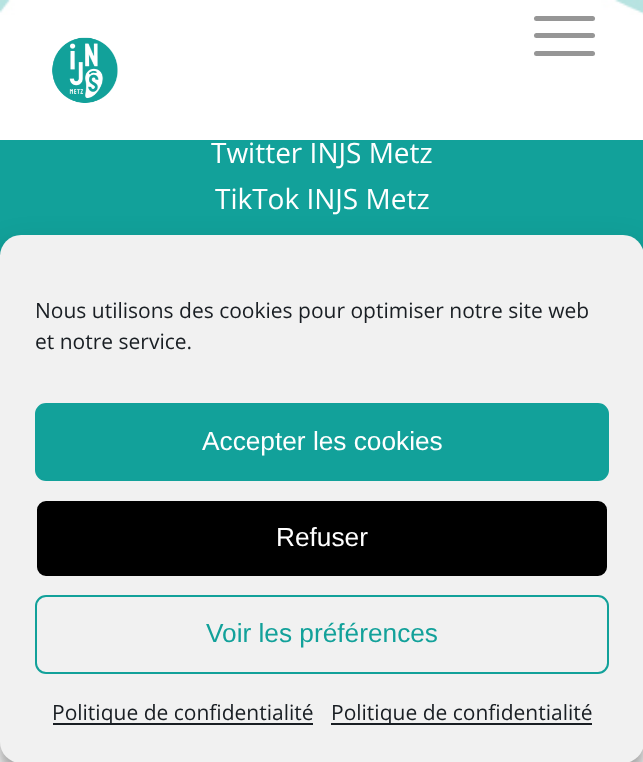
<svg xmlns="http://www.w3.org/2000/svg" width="643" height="762">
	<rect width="100%" height="100%" fill="#12A19A" />
	<rect x="0" y="15" width="643" height="125" fill="#FFFFFF" />
	<image x="0" y="0" width="643" height="15" href="assets/img1.png" />
	<image x="52" y="37" width="66" height="66" href="assets/img2.png" />
	<rect x="534" y="33" width="61" height="5" rx="2.5" fill="#969696" />
	<rect x="534" y="16" width="61" height="5" rx="2.5" fill="#969696" />
	<rect x="534" y="51" width="61" height="5" rx="2.5" fill="#969696" />
	<g font-family="Open Sans" font-size="28" fill="#FFFFFF">
		<text x="211" y="163">Twitter INJS Metz</text>
		<text x="215" y="209">TikTok INJS Metz</text>
	</g>
	<rect x="0" y="742" width="643" height="20" fill="#FFFFFF" />
	<rect x="0" y="245" width="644" height="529" rx="21" fill="#000000" fill-opacity="0.23" filter="blur(5px)" />
	<rect x="0" y="252" width="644" height="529" rx="21" fill="#000000" fill-opacity="0.19" filter="blur(17.5px)" />
	<rect x="0" y="235" width="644" height="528" rx="21" fill="#F1F1F1" />
	<g font-family="Open Sans" font-size="21" fill="#191E23">
		<text x="35" y="318">Nous utilisons des cookies pour optimiser notre site web</text>
		<text x="35" y="349">et notre service.</text>
	</g>
	<rect x="36" y="404" width="572" height="76" rx="10" fill="#12A19A" stroke="#12A19A" stroke-width="2" />
	<text x="202" y="450" font-family="Liberation Sans" font-size="26.25" fill="#FFFFFF">Accepter les cookies</text>
	<rect x="36" y="500" width="572" height="77" rx="10" fill="#000000" stroke="#F1F1F1" stroke-width="2" />
	<text x="276" y="546" font-family="Liberation Sans" font-size="26.25" fill="#FFFFFF">Refuser</text>
	<rect x="36" y="596" width="572" height="77" rx="10" fill="none" stroke="#12A19A" stroke-width="2" />
	<text x="206" y="642" font-family="Liberation Sans" font-size="26.25" fill="#12A19A">Voir les préférences</text>
	<rect x="53" y="723" width="260" height="2" fill="#191E23" />
	<text x="52" y="720" font-family="Open Sans" font-size="21" fill="#191E23">Politique de confidentialité</text>
	<rect x="331" y="723" width="261" height="2" fill="#191E23" />
	<text x="331" y="720" font-family="Open Sans" font-size="21" fill="#191E23">Politique de confidentialité</text>
</svg>
